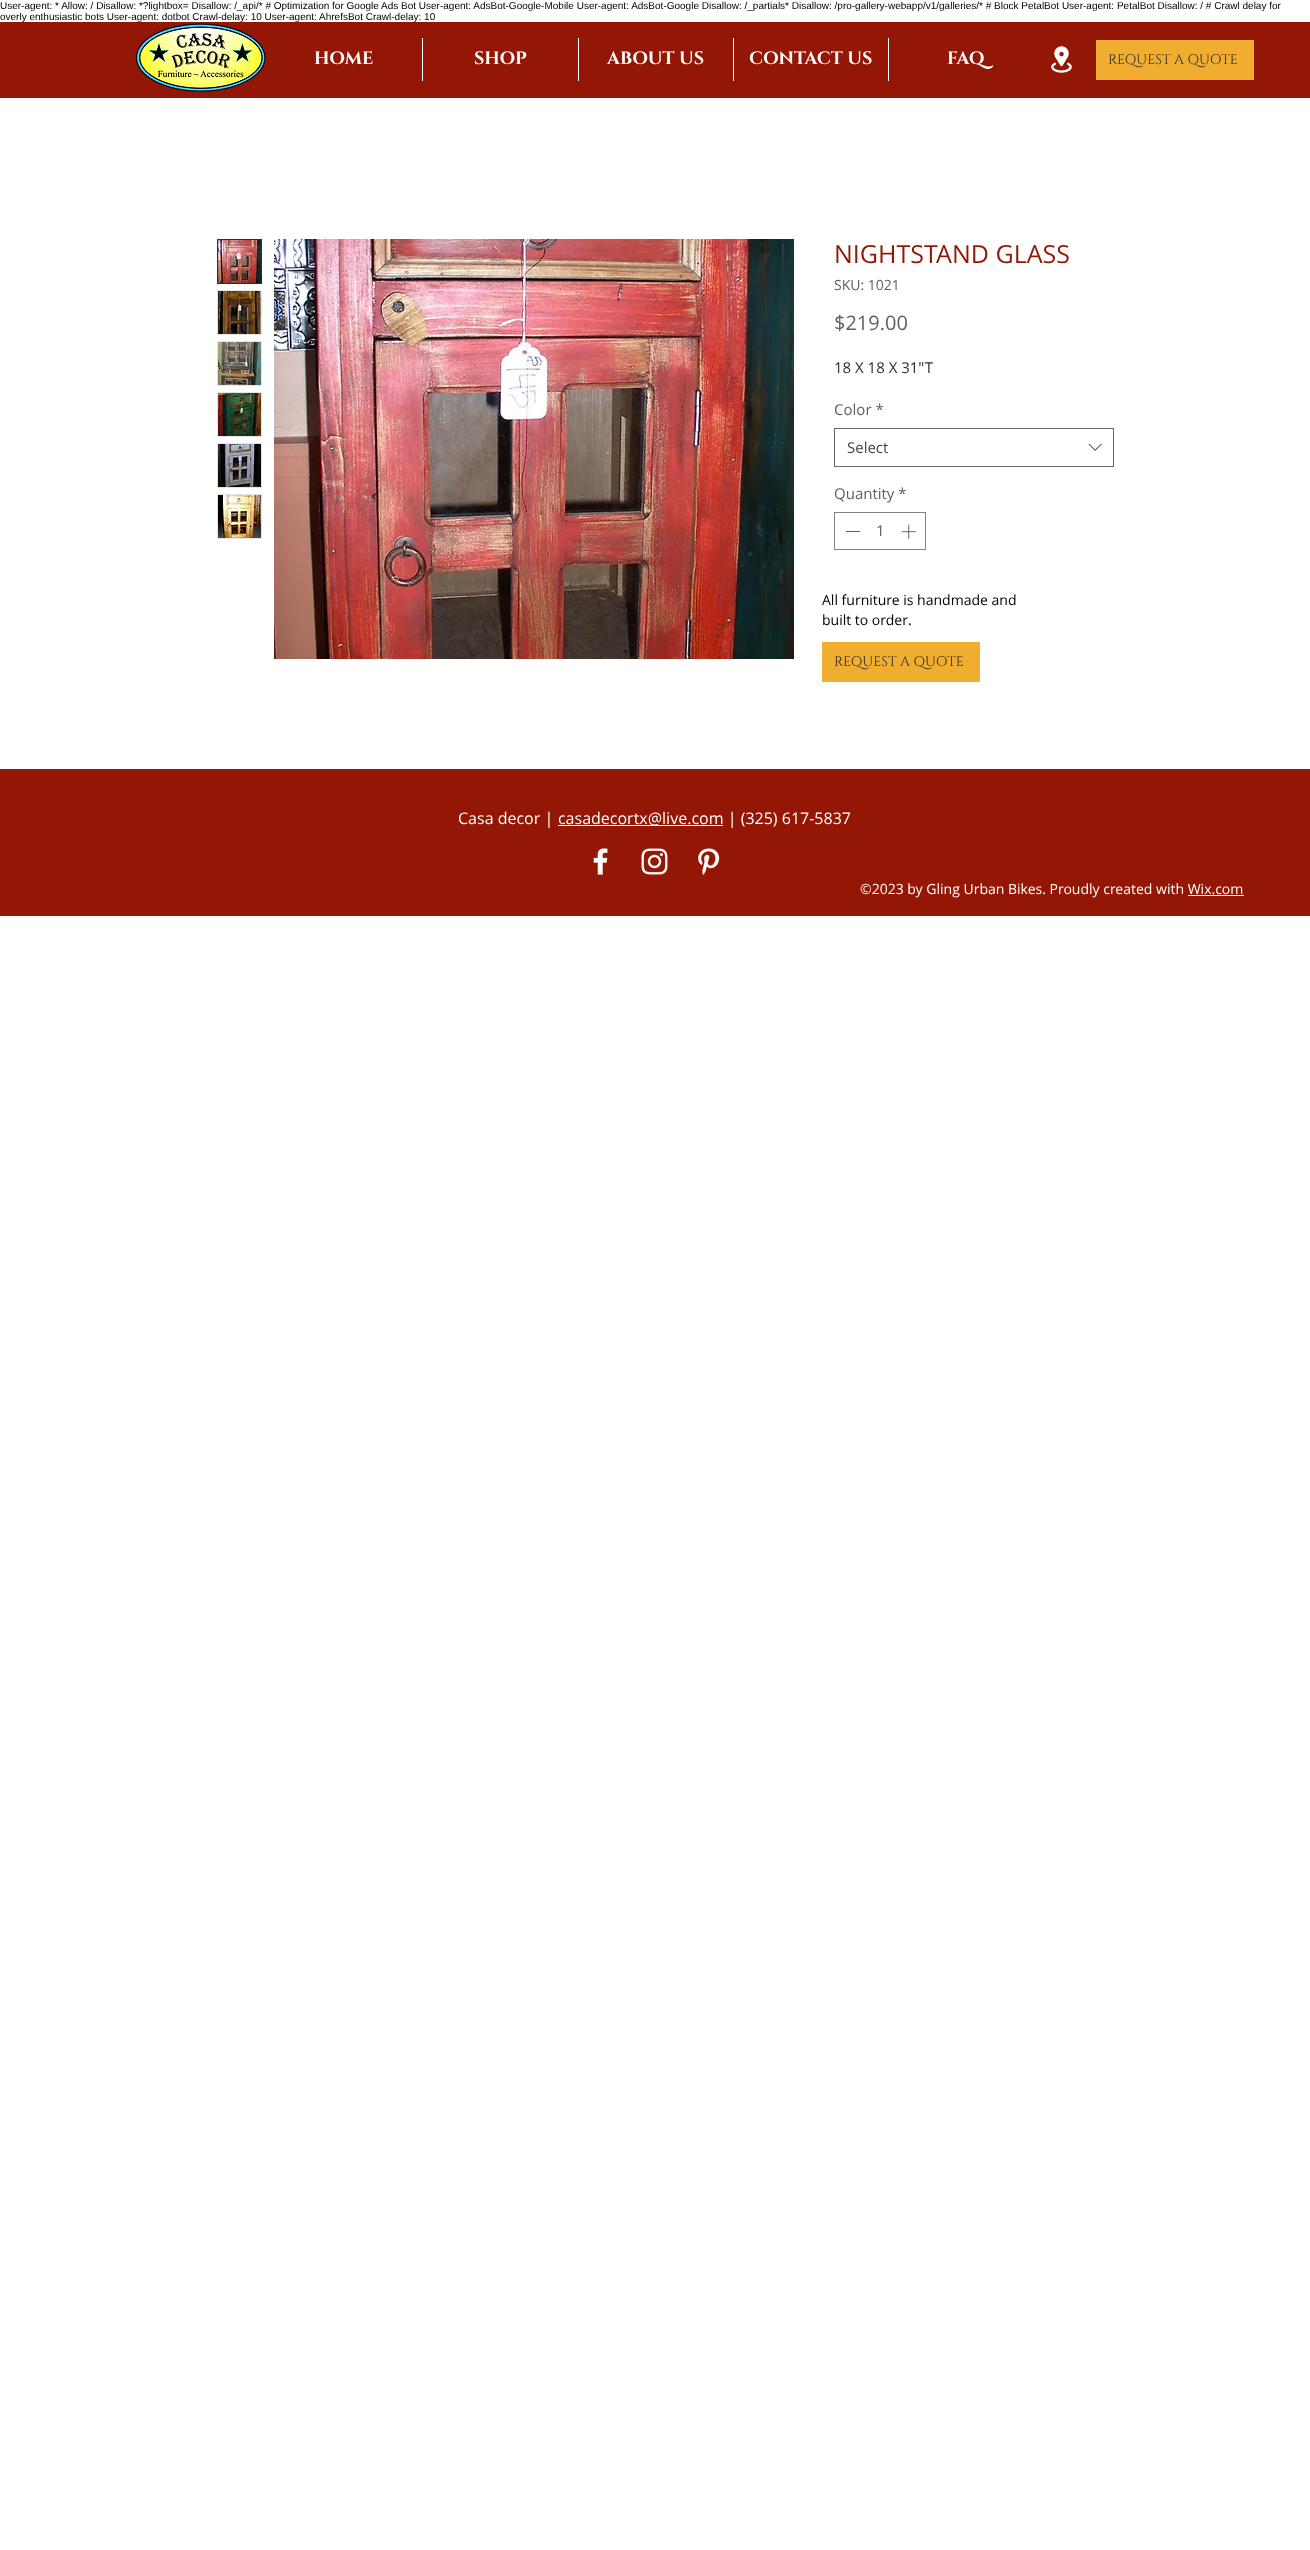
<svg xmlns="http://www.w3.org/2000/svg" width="1310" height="2550">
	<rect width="100%" height="100%" fill="#FFFFFF" />
	<g font-family="Liberation Sans" font-size="10" fill="#000000">
		<text x="0" y="9">User-agent: * Allow: / Disallow: *?lightbox= Disallow: /_api/* # Optimization for Google Ads Bot User-agent: AdsBot-Google-Mobile User-agent: AdsBot-Google Disallow: /_partials* Disallow: /pro-gallery-webapp/v1/galleries/* # Block PetalBot User-agent: PetalBot Disallow: / # Crawl delay for</text>
		<text x="0" y="20">overly enthusiastic bots User-agent: dotbot Crawl-delay: 10 User-agent: AhrefsBot Crawl-delay: 10</text>
	</g>
	<rect x="0" y="22" width="1310" height="76" fill="#941706" />
	<image x="135" y="23" width="131" height="69" href="assets/img1.png" />
	<text x="314" y="64" font-family="Cinzel" font-size="18" font-weight="700" fill="#FFFFFF">HOME</text>
	<rect x="422" y="38" width="1" height="43" fill="#FFFFFF" />
	<text x="474" y="64" font-family="Cinzel" font-size="18" font-weight="700" fill="#FFFFFF">SHOP</text>
	<rect x="578" y="38" width="1" height="43" fill="#FFFFFF" />
	<text x="607" y="64" font-family="Cinzel" font-size="18" font-weight="700" fill="#FFFFFF">ABOUT US</text>
	<rect x="733" y="38" width="1" height="43" fill="#FFFFFF" />
	<text x="749" y="64" font-family="Cinzel" font-size="18" font-weight="700" fill="#FFFFFF">CONTACT US</text>
	<rect x="888" y="38" width="1" height="43" fill="#FFFFFF" />
	<text x="947" y="64" font-family="Cinzel" font-size="18" font-weight="700" fill="#FFFFFF">FAQ</text>
	<image x="1051" y="46" width="21" height="27" href="assets/img2.png" />
	<rect x="1096" y="40" width="158" height="40" fill="#F0AD30" />
	<text x="1108" y="64" font-family="Cinzel" font-size="14" fill="#2F2E2E">REQUEST A QUOTE</text>
	<rect x="217.5" y="239.5" width="44" height="44" fill="none" stroke="#2F2E2E" />
	<image x="218" y="240" width="43" height="43" href="assets/img3.png" />
	<rect x="217" y="290" width="45" height="45" fill="#E5E5E5" />
	<image x="218" y="291" width="43" height="43" href="assets/img4.png" />
	<rect x="217" y="341" width="45" height="45" fill="#E5E5E5" />
	<image x="218" y="342" width="43" height="43" href="assets/img5.png" />
	<rect x="217" y="392" width="45" height="45" fill="#E5E5E5" />
	<image x="218" y="393" width="43" height="43" href="assets/img6.png" />
	<rect x="217" y="443" width="45" height="45" fill="#E5E5E5" />
	<image x="218" y="444" width="43" height="43" href="assets/img7.png" />
	<rect x="217" y="494" width="45" height="45" fill="#E5E5E5" />
	<image x="218" y="495" width="43" height="43" href="assets/img8.png" />
	<image x="274" y="239" width="520" height="420" href="assets/img9.png" />
	<text x="834" y="263" font-family="Open Sans" font-size="25" fill="#941706">NIGHTSTAND GLASS</text>
	<text x="834" y="290" font-family="Open Sans" font-size="14" fill="#605E5E">SKU: 1021</text>
	<text x="834" y="330" font-family="Open Sans" font-size="20" fill="#605E5E">$219.00</text>
	<text x="834" y="373" font-family="Open Sans" font-size="15" fill="#2F2E2E">18 X 18 X 31"T</text>
	<text x="834" y="415" font-family="Open Sans" font-size="15" fill="#605E5E">Color *</text>
	<rect x="834.5" y="428.5" width="279" height="38" fill="none" stroke="#666666" />
	<text x="847" y="453" font-family="Open Sans" font-size="15" fill="#444444">Select</text>
	<image x="1088" y="443" width="14" height="8" href="assets/img10.png" />
	<text x="834" y="499" font-family="Open Sans" font-size="15" fill="#605E5E">Quantity *</text>
	<rect x="834.5" y="512.5" width="91" height="37" fill="none" stroke="#828282" />
	<rect x="846" y="531" width="14" height="1" fill="#605E5E" />
	<text x="876" y="536" font-family="Open Sans" font-size="15" fill="#605E5E">1</text>
	<image x="901" y="524" width="15" height="15" href="assets/img11.png" />
	<g font-family="Open Sans" font-size="14" fill="#000000">
		<text x="822" y="605">All furniture is handmade and</text>
		<text x="822" y="625">built to order.</text>
	</g>
	<rect x="822" y="642" width="158" height="40" fill="#F0AD30" />
	<text x="834" y="666" font-family="Cinzel" font-size="14" fill="#2F2E2E">REQUEST A QUOTE</text>
	<rect x="0" y="769" width="1310" height="147" fill="#941706" />
	<text x="458" y="824" font-family="Open Sans" font-size="16" fill="#FFFFFF">Casa decor |</text>
	<rect x="558" y="825" width="165" height="1" fill="#FFFFFF" />
	<text x="558" y="824" font-family="Open Sans" font-size="16" fill="#FFFFFF">casadecortx@live.com | (325) 617-5837</text>
	<image x="593" y="848" width="15" height="27" href="assets/img12.png" />
	<image x="641" y="848" width="27" height="27" href="assets/img13.png" />
	<image x="698" y="848" width="22" height="27" href="assets/img14.png" />
	<text x="860" y="894" font-family="Open Sans" font-size="14" fill="#FFFFFF">©2023 by Gling Urban Bikes. Proudly created with Wix.com</text>
	<rect x="1188" y="895" width="56" height="1" fill="#FFFFFF" />
</svg>
